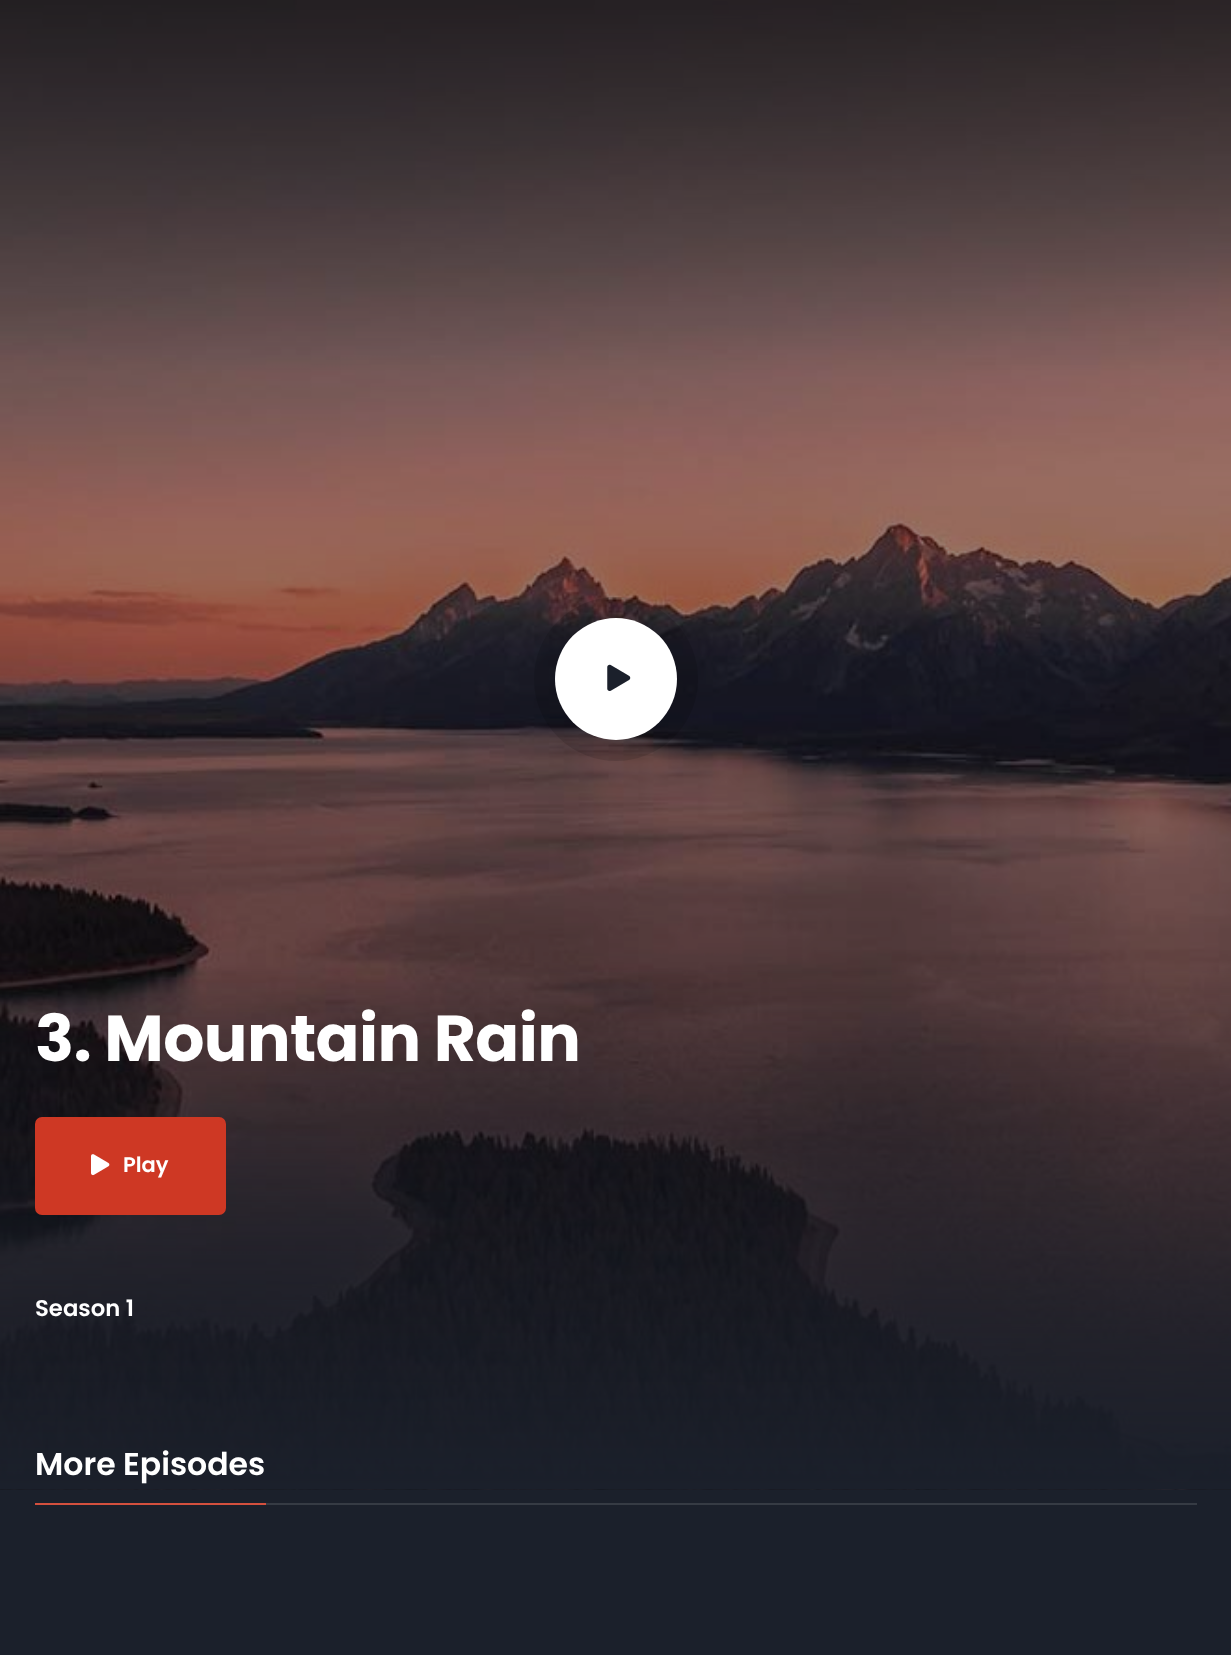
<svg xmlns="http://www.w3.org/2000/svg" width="1231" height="1655">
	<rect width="100%" height="100%" fill="#1B202B" />
	<rect x="266" y="1503" width="931" height="2" fill="#363B44" />
	<image x="0" y="0" width="1231" height="1490" href="assets/img1.png" />
	<circle cx="616" cy="679" r="71.5" fill="none" stroke="#000000" stroke-opacity="0.12" stroke-width="21" />
	<circle cx="616" cy="679" r="61" fill="#FFFFFF" />
	<image x="607" y="664" width="24" height="27" href="assets/img2.png" />
	<text x="35" y="1061" font-family="Poppins" font-size="64.75" font-weight="700" letter-spacing="-0.6" fill="#FFFFFF">3. Mountain Rain</text>
	<rect x="37" y="1119" width="187" height="94" rx="5" fill="#CE3824" stroke="#CE3824" stroke-width="4" />
	<image x="91" y="1154" width="19" height="22" href="assets/img3.png" />
	<text x="123" y="1172" font-family="Poppins" font-size="21" font-weight="600" fill="#FFFFFF">Play</text>
	<text x="35" y="1316" font-family="Poppins" font-size="22.75" font-weight="600" fill="#FFFFFF">Season 1</text>
	<rect x="35" y="1503" width="231" height="2" fill="#D4503E" />
	<text x="35" y="1475" font-family="Poppins" font-size="31.5" font-weight="600" fill="#FFFFFF">More Episodes</text>
</svg>
